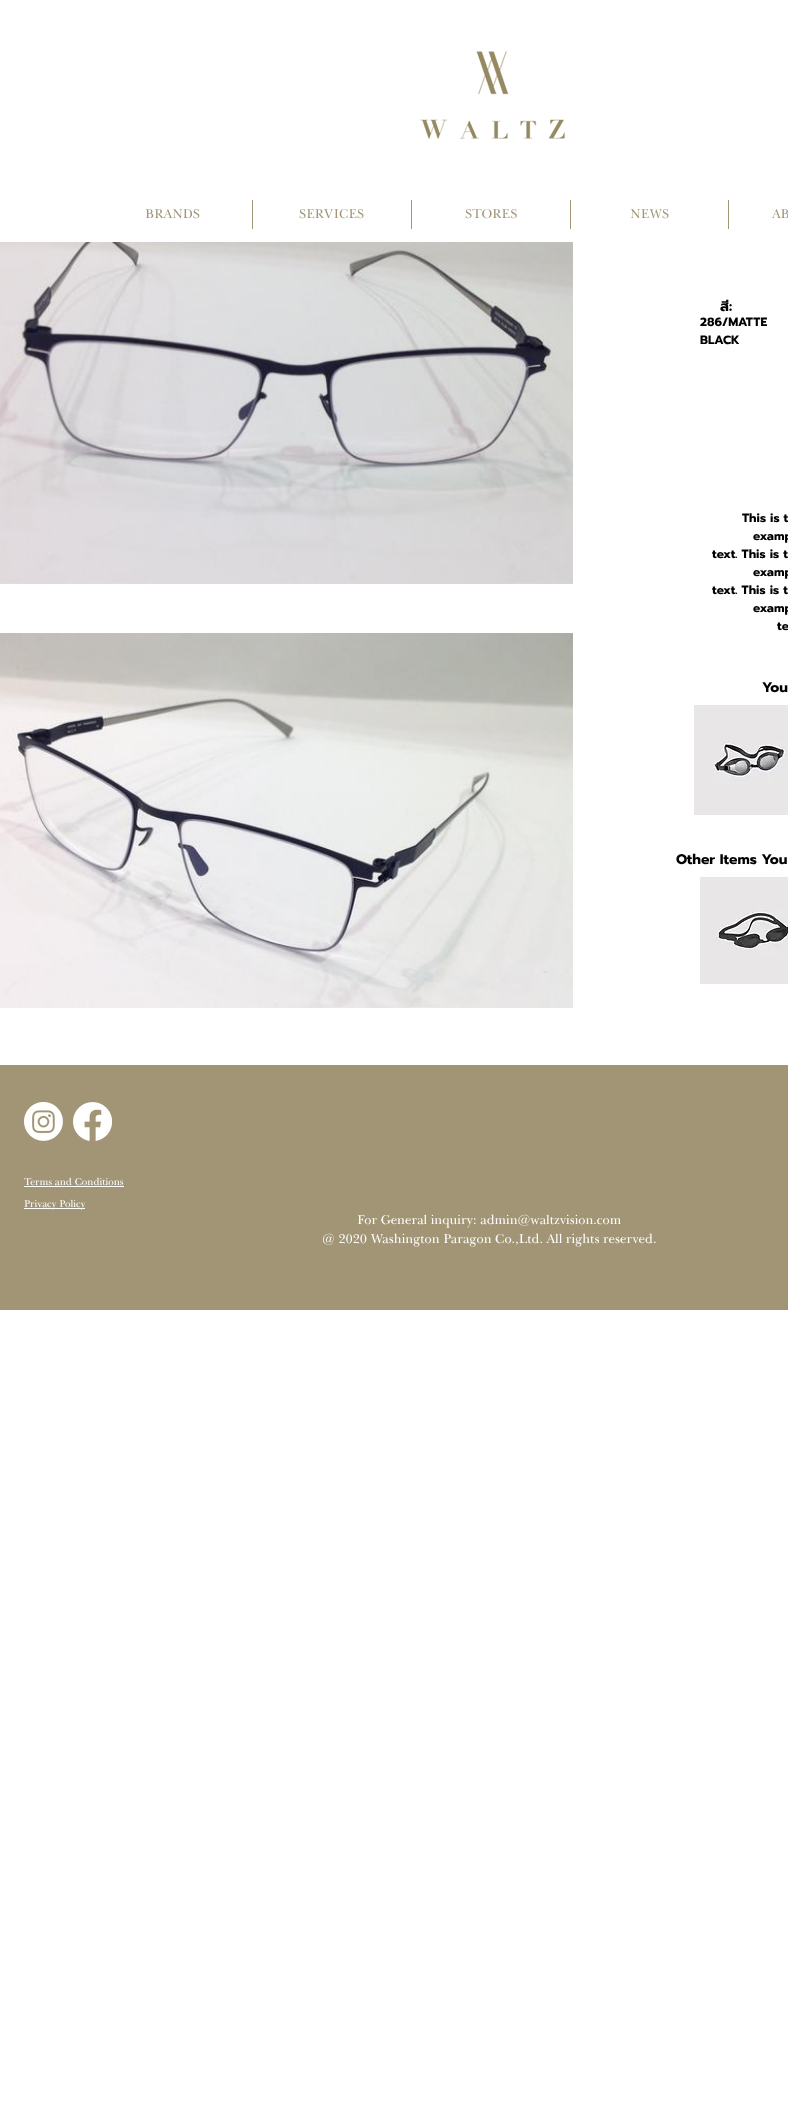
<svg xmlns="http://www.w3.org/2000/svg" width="788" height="2114">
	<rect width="100%" height="100%" fill="#FFFFFF" />
	<image x="420" y="51" width="145" height="88" href="assets/img1.png" />
	<text x="145" y="218" font-family="Baskerville" font-size="13" fill="#A19575">BRANDS</text>
	<rect x="252" y="200" width="1" height="29" fill="#A19575" />
	<text x="299" y="218" font-family="Baskerville" font-size="13" fill="#A19575">SERVICES</text>
	<rect x="411" y="200" width="1" height="29" fill="#A19575" />
	<text x="465" y="218" font-family="Baskerville" font-size="13" fill="#A19575">STORES</text>
	<rect x="570" y="200" width="1" height="29" fill="#A19575" />
	<text x="630" y="218" font-family="Baskerville" font-size="13" fill="#A19575">NEWS</text>
	<rect x="728" y="200" width="1" height="29" fill="#A19575" />
	<text x="772" y="218" font-family="Baskerville" font-size="13" fill="#A19575">AB</text>
	<image x="0" y="242" width="573" height="342" href="assets/img2.png" />
	<image x="0" y="633" width="573" height="375" href="assets/img3.png" />
	<text x="720" y="311" font-family="Prompt" font-size="14" font-weight="700" fill="#000000">สี:</text>
	<g font-family="Prompt" font-size="12" font-weight="700" fill="#000000">
		<text x="700" y="326">286/MATTE</text>
		<text x="700" y="344">BLACK</text>
		<text x="742" y="522">This is t</text>
		<text x="753" y="540">examp</text>
		<text x="712" y="558">text. This is t</text>
		<text x="753" y="576">examp</text>
		<text x="712" y="594">text. This is t</text>
		<text x="753" y="612">examp</text>
		<text x="777" y="630">te</text>
	</g>
	<text x="762" y="692" font-family="Prompt" font-size="14" font-weight="700" fill="#000000">You</text>
	<image x="694" y="705" width="94" height="110" href="assets/img4.png" />
	<text x="676" y="864" font-family="Prompt" font-size="14" font-weight="700" fill="#000000">Other Items You</text>
	<image x="700" y="877" width="88" height="107" href="assets/img5.png" />
	<rect x="0" y="1065" width="788" height="245" fill="#A19575" />
	<image x="24" y="1102" width="39" height="39" href="assets/img6.png" />
	<image x="73" y="1102" width="39" height="39" href="assets/img7.png" />
	<text x="24" y="1185" font-family="Baskerville" font-size="10" fill="#FFFFFF">Terms and Conditions</text>
	<rect x="24" y="1186" width="100" height="1" fill="#FFFFFF" />
	<rect x="24" y="1208" width="61" height="1" fill="#FFFFFF" />
	<text x="24" y="1207" font-family="Baskerville" font-size="10" fill="#FFFFFF">Privacy Policy</text>
	<g font-family="Baskerville" font-size="13" fill="#FFFFFF">
		<text x="357" y="1224">For General inquiry: admin@waltzvision.com</text>
		<text x="322" y="1243">@ 2020 Washington Paragon Co.,Ltd. All rights reserved.</text>
	</g>
</svg>
